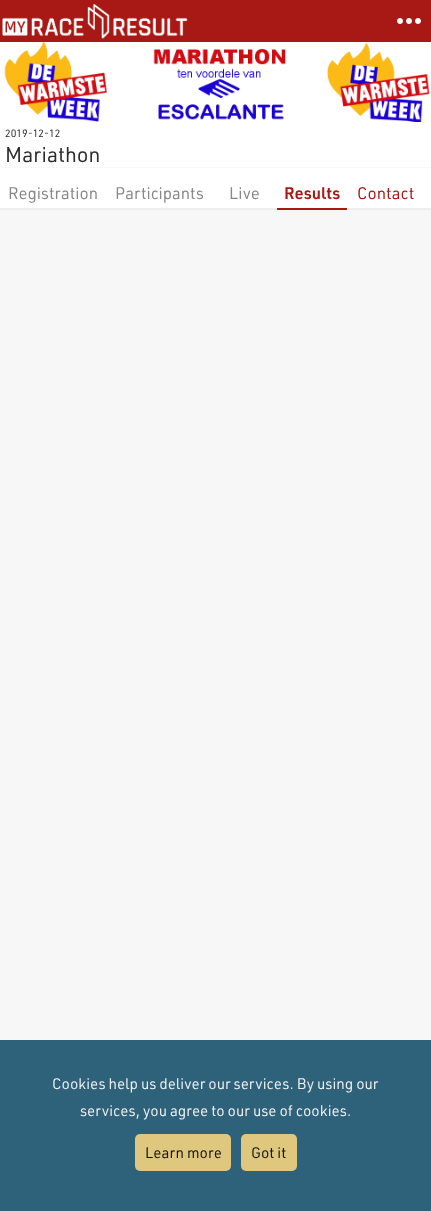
<svg xmlns="http://www.w3.org/2000/svg" width="431" height="1211">
	<rect width="100%" height="100%" fill="#F7F7F7" />
	<rect x="0" y="0" width="431" height="42" fill="#A81815" />
	<image x="2" y="4" width="186" height="35" href="assets/img1.png" />
	<image x="397" y="18" width="24" height="6" href="assets/img2.png" />
	<image x="0" y="42" width="431" height="80" href="assets/img3.png" />
	<rect x="0" y="122" width="431" height="45" fill="#FFFFFF" />
	<text x="5" y="137" font-family="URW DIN" font-size="10.5" fill="#2C2C2C">2019-12-12</text>
	<text x="5" y="162" font-family="URW DIN" font-size="21" fill="#2C2C2C">Mariathon</text>
	<rect x="0" y="168" width="431" height="40" fill="#FFFFFF" />
	<rect x="0" y="208" width="431" height="2" fill="#EEEEEE" />
	<g font-family="URW DIN" font-size="16.5" fill="#888888">
		<text x="8" y="199">Registration</text>
		<text x="115" y="199">Participants</text>
		<text x="229" y="199">Live</text>
	</g>
	<rect x="277" y="208" width="70" height="2" fill="#A81815" />
	<text x="284" y="199" font-family="URW DIN" font-size="16.5" font-weight="600" fill="#A81815">Results</text>
	<text x="357" y="199" font-family="URW DIN" font-size="16.5" fill="#A81815">Contact</text>
	<rect x="0" y="1040" width="431" height="171" fill="#2E617A" />
	<g font-family="URW DIN" font-size="15" fill="#EFEFEF">
		<text x="52" y="1089">Cookies help us deliver our services. By using our</text>
		<text x="80" y="1116">services, you agree to our use of cookies.</text>
	</g>
	<rect x="135" y="1134" width="96" height="37" rx="5" fill="#DFC77E" />
	<text x="145" y="1158" font-family="URW DIN" font-size="15" fill="#141414">Learn more</text>
	<rect x="241" y="1134" width="56" height="37" rx="5" fill="#DFC77E" />
	<text x="251" y="1158" font-family="URW DIN" font-size="15" fill="#141414">Got it</text>
</svg>
